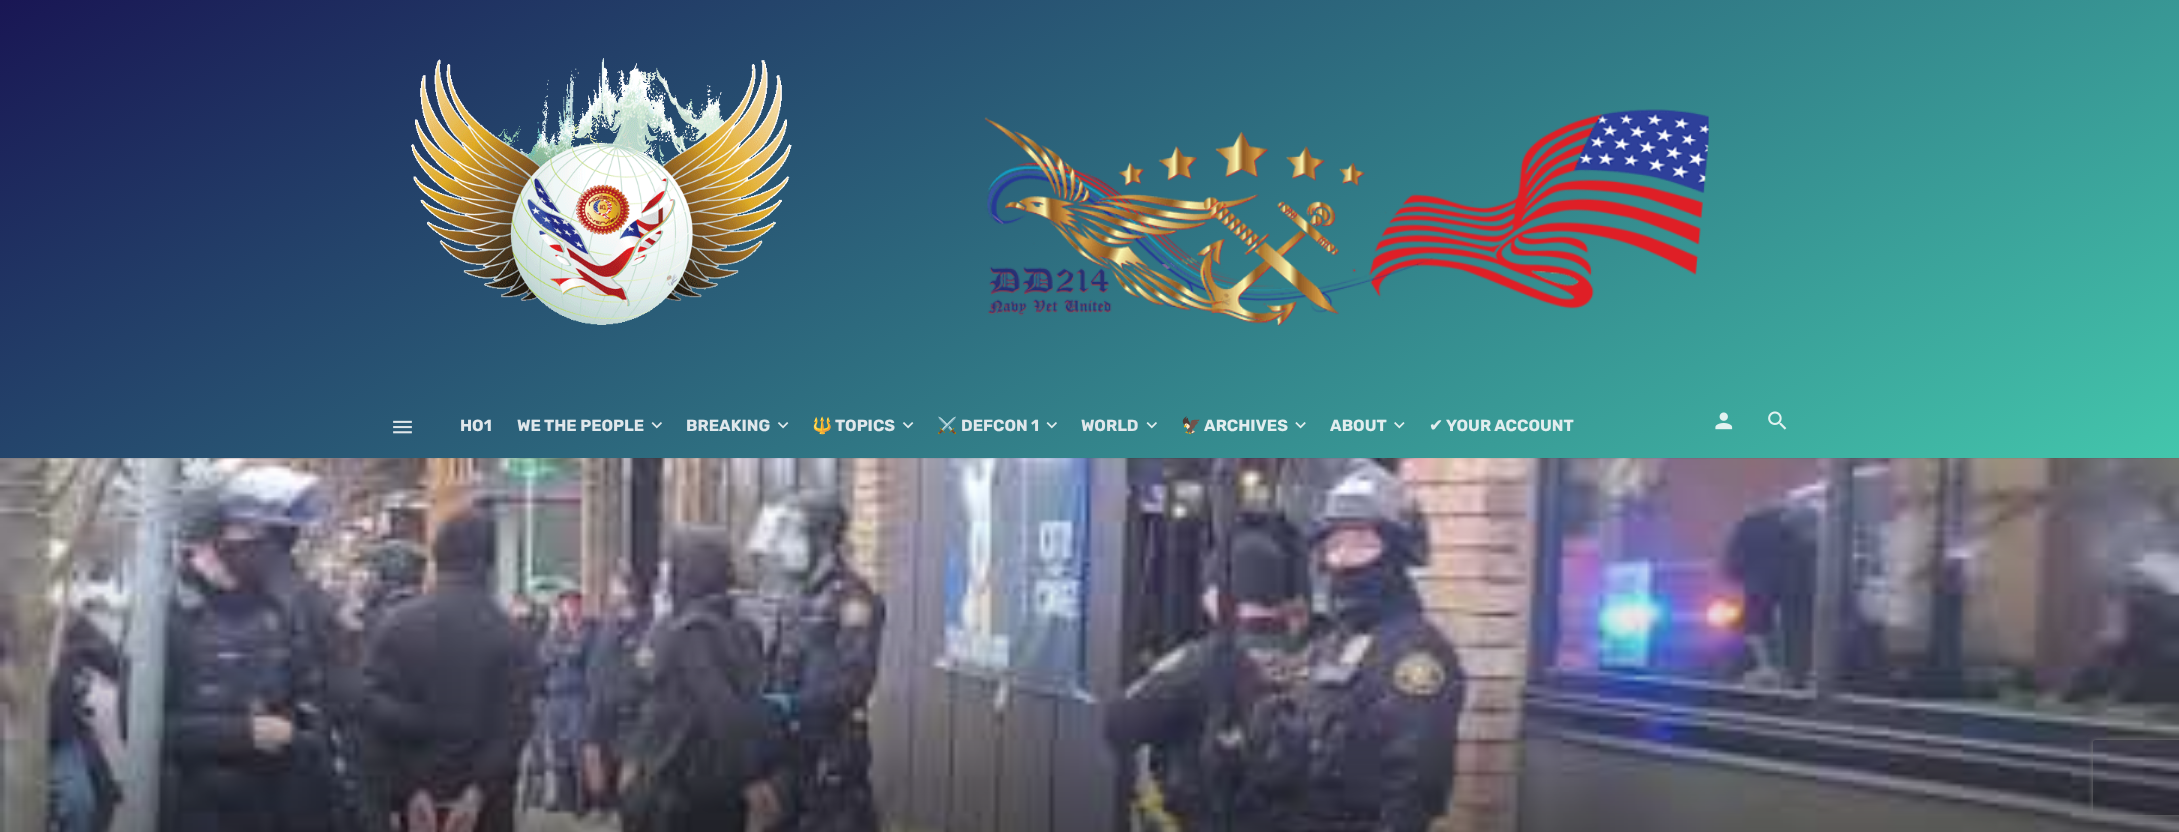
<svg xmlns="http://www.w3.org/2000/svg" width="2179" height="832">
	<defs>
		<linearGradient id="g1" gradientUnits="userSpaceOnUse" x1="1462" y1="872" x2="718" y2="-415"><stop offset="0" stop-color="#43C6AC" /><stop offset="1" stop-color="#191654" /></linearGradient>
		<clipPath id="clip1"><path d="M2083 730H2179V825H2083ZM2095.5 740H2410.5C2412 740 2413 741 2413 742.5V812.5C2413 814 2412 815 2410.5 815H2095.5C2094 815 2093 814 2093 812.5V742.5C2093 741 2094 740 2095.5 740Z" clip-rule="evenodd" /></clipPath>
	</defs>
	<rect width="100%" height="100%" fill="#FFFFFF" />
	<image x="0" y="458" width="2179" height="374" href="assets/img13.png" />
	<rect x="0" y="458" width="2179" height="1" fill="#000000" fill-opacity="0.04" />
	<rect x="0" y="0" width="2179" height="458" fill="url(#g1)" />
	<image x="411" y="58" width="381" height="267" href="assets/img1.png" />
	<image x="984" y="109" width="725" height="217" href="assets/img2.png" />
	<image x="393" y="420" width="19" height="14" href="assets/img3.png" />
	<g font-family="Rubik" font-size="16.25" font-weight="700" fill="#DFE7EB">
		<text x="460" y="431">HO1</text>
		<text x="517" y="431">WE THE PEOPLE</text>
	</g>
	<image x="651" y="422" width="11" height="7" href="assets/img4.png" />
	<text x="686" y="431" font-family="Rubik" font-size="16.25" font-weight="700" fill="#DFE7EB">BREAKING</text>
	<image x="777" y="422" width="12" height="7" href="assets/img5.png" />
	<text x="812" y="431" font-family="Noto Color Emoji" font-size="16.25" font-weight="700" fill="#DFE7EB">🔱</text>
	<text x="835" y="431" font-family="Rubik" font-size="16.25" font-weight="700" fill="#DFE7EB">TOPICS</text>
	<image x="902" y="422" width="12" height="7" href="assets/img6.png" />
	<text x="937" y="431" font-family="Noto Color Emoji" font-size="16.25" font-weight="700" fill="#DFE7EB">⚔️</text>
	<text x="961" y="431" font-family="Rubik" font-size="16.25" font-weight="700" fill="#DFE7EB">DEFCON 1</text>
	<image x="1046" y="422" width="11" height="7" href="assets/img7.png" />
	<text x="1081" y="431" font-family="Rubik" font-size="16.25" font-weight="700" fill="#DFE7EB">WORLD</text>
	<image x="1146" y="422" width="11" height="7" href="assets/img8.png" />
	<text x="1181" y="431" font-family="Noto Color Emoji" font-size="16.25" font-weight="700" fill="#E1EDEE">🦅</text>
	<text x="1204" y="431" font-family="Rubik" font-size="16.25" font-weight="700" fill="#E1EDEE">ARCHIVES</text>
	<image x="1295" y="422" width="11" height="7" href="assets/img9.png" />
	<text x="1330" y="431" font-family="Rubik" font-size="16.25" font-weight="700" fill="#E1EDEE">ABOUT</text>
	<image x="1394" y="422" width="11" height="7" href="assets/img10.png" />
	<text x="1429" y="431" font-family="DejaVu Sans" font-size="16.25" font-weight="700" fill="#E1EDEE">✔</text>
	<text x="1446" y="431" font-family="Rubik" font-size="16.25" font-weight="700" fill="#E1EDEE">YOUR ACCOUNT</text>
	<image x="1715" y="412" width="18" height="18" href="assets/img11.png" />
	<image x="1768" y="411" width="19" height="19" href="assets/img12.png" />
	<g clip-path="url(#clip1)">
		<rect x="2093" y="740" width="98" height="75" rx="2.5" fill="#808080" filter="blur(3px)" />
	</g>
</svg>
